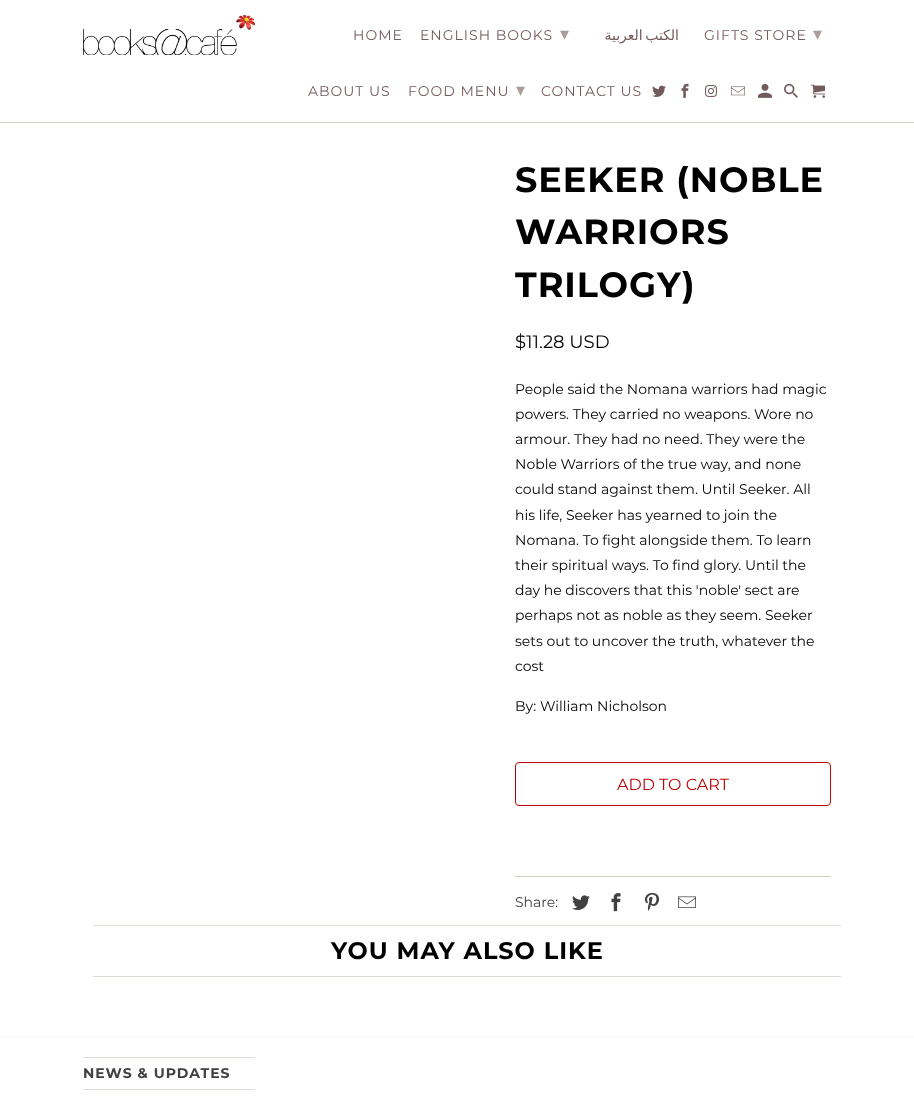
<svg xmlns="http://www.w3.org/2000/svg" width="914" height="1116">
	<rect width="100%" height="100%" fill="#FFFFFF" />
	<rect x="0" y="122" width="914" height="1" fill="#D3CEC5" />
	<image x="83" y="15" width="172" height="40" href="assets/img1.png" />
	<g font-family="Montserrat" font-size="14" letter-spacing="1" fill="#745B5B">
		<text x="353" y="40">HOME</text>
		<text x="420" y="40">ENGLISH BOOKS</text>
	</g>
	<text x="560" y="40" font-family="DejaVu Sans" font-size="18" letter-spacing="1" fill="#AC9D9D">▾</text>
	<text x="679" y="40" word-spacing="-2" font-family="DejaVu Sans" font-size="14" letter-spacing="1" direction="rtl" fill="#745B5B">الكتب العربية</text>
	<text x="704" y="40" font-family="Montserrat" font-size="14" letter-spacing="1" fill="#745B5B">GIFTS STORE</text>
	<text x="813" y="40" font-family="DejaVu Sans" font-size="18" letter-spacing="1" fill="#AC9D9D">▾</text>
	<g font-family="Montserrat" font-size="14" letter-spacing="1" fill="#745B5B">
		<text x="308" y="96">ABOUT US</text>
		<text x="408" y="96">FOOD MENU</text>
	</g>
	<text x="516" y="96" font-family="DejaVu Sans" font-size="18" letter-spacing="1" fill="#AC9D9D">▾</text>
	<text x="541" y="96" font-family="Montserrat" font-size="14" letter-spacing="1" fill="#745B5B">CONTACT US</text>
	<image x="652" y="85" width="14" height="12" href="assets/img2.png" />
	<image x="681" y="83" width="8" height="15" href="assets/img3.png" />
	<image x="705" y="85" width="12" height="12" href="assets/img4.png" />
	<image x="731" y="86" width="14" height="10" href="assets/img5.png" />
	<image x="758" y="83" width="14" height="15" href="assets/img6.png" />
	<image x="784" y="83" width="14" height="15" href="assets/img7.png" />
	<image x="811" y="84" width="14" height="14" href="assets/img8.png" />
	<g font-family="Montserrat" font-size="35" font-weight="700" letter-spacing="1" fill="#000000">
		<text x="515" y="192">SEEKER (NOBLE</text>
		<text x="515" y="244">WARRIORS</text>
		<text x="515" y="297">TRILOGY)</text>
	</g>
	<text x="515" y="348" font-family="Montserrat" font-size="18" fill="#000000">$11.28 USD</text>
	<g font-family="Montserrat" font-size="14" fill="#000000">
		<text x="515" y="394">People said the Nomana warriors had magic</text>
		<text x="515" y="419">powers. They carried no weapons. Wore no</text>
		<text x="515" y="444">armour. They had no need. They were the</text>
		<text x="515" y="469">Noble Warriors of the true way, and none</text>
		<text x="515" y="494">could stand against them. Until Seeker. All</text>
		<text x="515" y="520">his life, Seeker has yearned to join the</text>
		<text x="515" y="545">Nomana. To fight alongside them. To learn</text>
		<text x="515" y="570">their spiritual ways. To find glory. Until the</text>
		<text x="515" y="595">day he discovers that this 'noble' sect are</text>
		<text x="515" y="620">perhaps not as noble as they seem. Seeker</text>
		<text x="515" y="646">sets out to uncover the truth, whatever the</text>
		<text x="515" y="671">cost</text>
		<text x="515" y="711">By: William Nicholson</text>
	</g>
	<rect x="515.5" y="762.5" width="315" height="43" rx="3.5" fill="none" stroke="#BB0606" />
	<text x="617" y="790" font-family="Montserrat" font-size="16" fill="#BB0606">ADD TO CART</text>
	<rect x="515" y="876" width="316" height="1" fill="#D3CEC5" />
	<text x="515" y="907" font-family="Montserrat" font-size="14" fill="#404040">Share:</text>
	<image x="572" y="895" width="18" height="15" href="assets/img9.png" />
	<image x="611" y="893" width="10" height="19" href="assets/img10.png" />
	<image x="645" y="892" width="14" height="19" href="assets/img11.png" />
	<image x="678" y="896" width="18" height="12" href="assets/img12.png" />
	<rect x="93" y="925" width="748" height="1" fill="#DFDCD5" />
	<rect x="93" y="976" width="748" height="1" fill="#DFDCD5" />
	<text x="331" y="959" font-family="Montserrat" font-size="24" font-weight="700" letter-spacing="1" fill="#000000">YOU MAY ALSO LIKE</text>
	<rect x="0" y="1036" width="914" height="1" fill="#FAFAFA" />
	<rect x="83" y="1057" width="172" height="1" fill="#DFDCD5" />
	<rect x="83" y="1089" width="172" height="1" fill="#DFDCD5" />
	<text x="83" y="1078" font-family="Montserrat" font-size="14" font-weight="700" letter-spacing="1" fill="#404040">NEWS &amp; UPDATES</text>
</svg>
